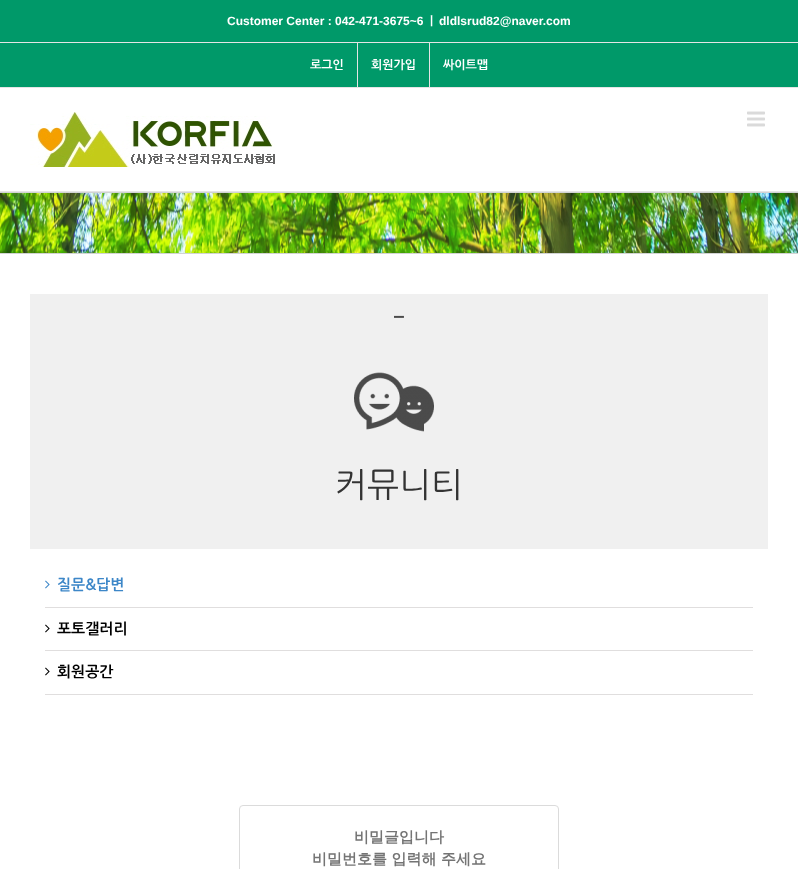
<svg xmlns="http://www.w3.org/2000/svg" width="798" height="869">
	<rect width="100%" height="100%" fill="#FFFFFF" />
	<rect x="0" y="0" width="798" height="87" fill="#009969" />
	<rect x="0" y="87" width="798" height="1" fill="#E5E5E5" />
	<rect x="0" y="42" width="798" height="1" fill="#E5E5E5" />
	<text x="227" y="25" font-family="Liberation Sans" font-size="12" font-weight="700" fill="#FFFFFF">Customer Center : 042-471-3675~6</text>
	<text x="430" y="25" font-family="NanumGothic" font-size="12" font-weight="700" fill="#FFFFFF">|</text>
	<text x="439" y="25" font-family="Liberation Sans" font-size="12" font-weight="700" fill="#FFFFFF">dldlsrud82@naver.com</text>
	<text x="310" y="69" font-family="NanumGothic" font-size="12" font-weight="700" fill="#FFFFFF">로그인</text>
	<rect x="357" y="43" width="1" height="44" fill="#E5E5E5" />
	<text x="371" y="69" font-family="NanumGothic" font-size="12" font-weight="700" fill="#FFFFFF">회원가입</text>
	<rect x="429" y="43" width="1" height="44" fill="#E5E5E5" />
	<text x="443" y="69" font-family="NanumGothic" font-size="12" font-weight="700" fill="#FFFFFF">싸이트맵</text>
	<rect x="0" y="191" width="798" height="1" fill="#E5E5E5" />
	<image x="30" y="112" width="245" height="55" href="assets/img1.png" />
	<image x="747" y="111" width="18" height="16" href="assets/img2.png" />
	<image x="0" y="193" width="798" height="60" href="assets/img3.png" />
	<rect x="0" y="192" width="798" height="1" fill="#D2D3D4" />
	<rect x="0" y="253" width="798" height="1" fill="#D2D3D4" />
	<rect x="30" y="294" width="738" height="255" fill="#F0F0F0" />
	<text x="392" y="329" font-family="NanumGothic" font-size="34" fill="#4B4B4B">–</text>
	<image x="354" y="372" width="80" height="60" href="assets/img4.png" />
	<text x="335" y="497" font-family="NanumGothic" font-size="34" fill="#333333">커뮤니티</text>
	<rect x="45" y="607" width="708" height="1" fill="#E0DEDE" />
	<image x="45" y="580" width="5" height="9" href="assets/img5.png" />
	<text x="57" y="590" font-family="NanumGothic" font-size="15" font-weight="700" fill="#3D87C8">질문&amp;답변</text>
	<rect x="45" y="650" width="708" height="1" fill="#E0DEDE" />
	<image x="45" y="624" width="5" height="9" href="assets/img6.png" />
	<text x="57" y="634" font-family="NanumGothic" font-size="15" font-weight="700" fill="#000000">포토갤러리</text>
	<rect x="45" y="694" width="708" height="1" fill="#E0DEDE" />
	<image x="45" y="667" width="5" height="9" href="assets/img6.png" />
	<text x="57" y="677" font-family="NanumGothic" font-size="15" font-weight="700" fill="#000000">회원공간</text>
	<rect x="239.5" y="805.5" width="319" height="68" rx="3.5" fill="none" stroke="#DBDBDB" />
	<g font-family="WenQuanYi Zen Hei" font-size="15" font-weight="700" fill="#747474">
		<text x="354" y="842">비밀글입니다</text>
		<text x="312" y="864">비밀번호를 입력해 주세요</text>
	</g>
</svg>
